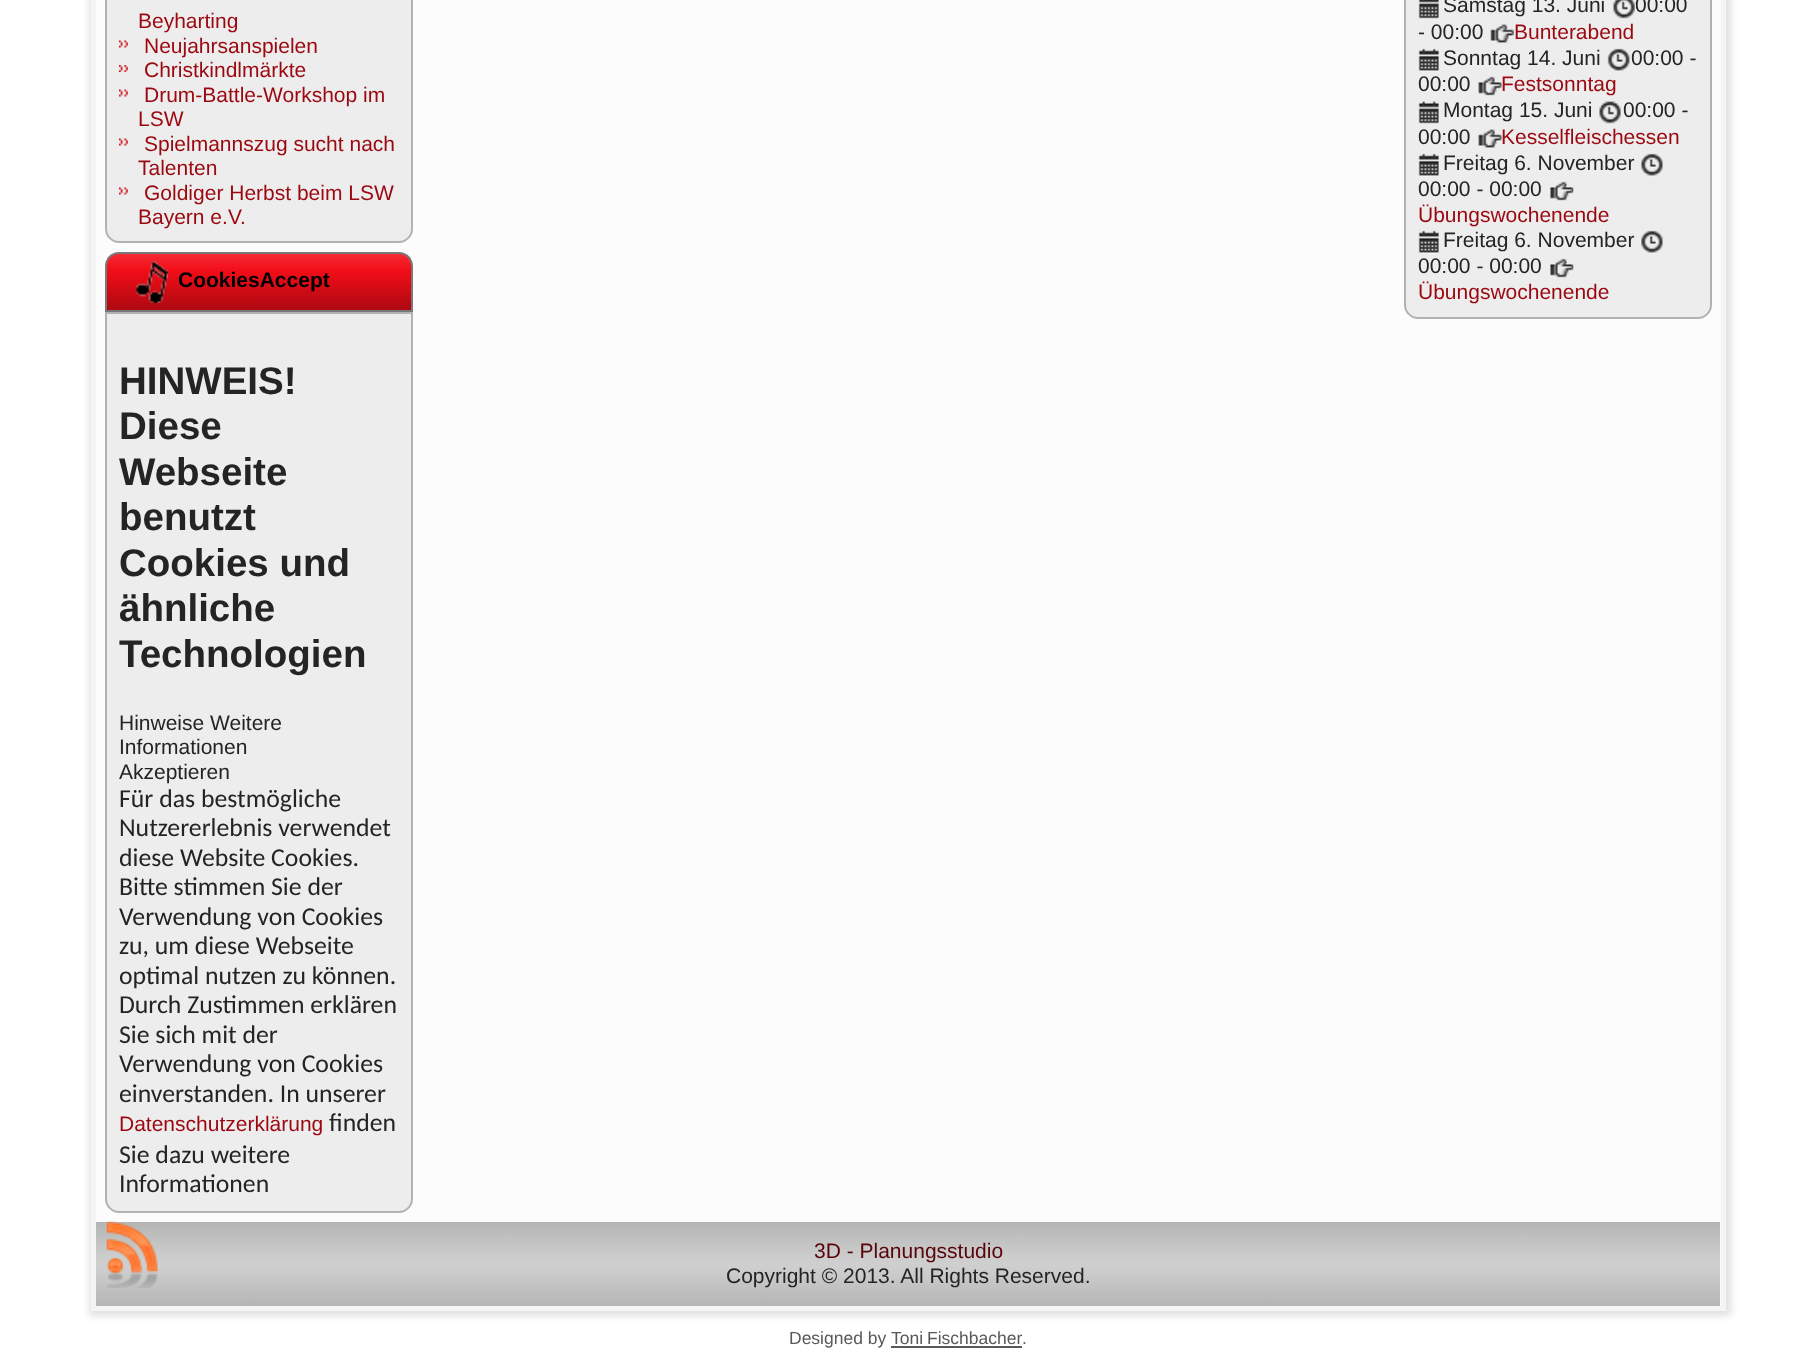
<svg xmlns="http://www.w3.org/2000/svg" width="1816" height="1365">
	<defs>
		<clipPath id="clip1"><path d="M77 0H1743V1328H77ZM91-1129H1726V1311H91Z" clip-rule="evenodd" /></clipPath>
		<clipPath id="clip2"><path d="M119 252H399C406.5 252 413 258.5 413 266V312H105V266C105 258.5 111.5 252 119 252Z" /></clipPath>
		<linearGradient id="g1" gradientUnits="userSpaceOnUse" x1="259" y1="254" x2="259" y2="310"><stop offset="0" stop-color="#F42A34" /><stop offset="0.3" stop-color="#F20D18" /><stop offset="1" stop-color="#AE0911" /></linearGradient>
		<linearGradient id="g2" gradientUnits="userSpaceOnUse" x1="908" y1="1222" x2="908" y2="1306"><stop offset="0" stop-color="#B5B5B5" /><stop offset="0.4" stop-color="#CCCCCC" /><stop offset="0.5" stop-color="#CFCFCF" /><stop offset="0.6" stop-color="#CCCCCC" /><stop offset="1" stop-color="#B5B5B5" /></linearGradient>
	</defs>
	<rect width="100%" height="100%" fill="#FFFFFF" />
	<g clip-path="url(#clip1)">
		<rect x="89" y="-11" width="1642" height="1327" fill="#000000" fill-opacity="0.12" filter="blur(3.5px)" />
	</g>
	<rect x="91" y="0" width="1634" height="1310" fill="#F5F5F5" fill-opacity="0.3" />
	<rect x="93.5" y="-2.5" width="1630" height="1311" fill="none" stroke="#E0E0E0" stroke-opacity="0.3" stroke-width="5" />
	<path d="M106-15H412V229C412 236 406 242 399 242H119C112 242 106 236 106 229Z" fill="#EDEDED" stroke="#B2B2B2" stroke-width="2" />
	<text x="138" y="28" font-family="Liberation Sans" font-size="21" fill="#9B0810">Beyharting</text>
	<image x="119" y="40" width="9" height="8" href="assets/img1.png" />
	<text x="144" y="53" font-family="Liberation Sans" font-size="21" fill="#9B0810">Neujahrsanspielen</text>
	<image x="119" y="65" width="9" height="7" href="assets/img2.png" />
	<text x="144" y="77" font-family="Liberation Sans" font-size="21" fill="#9B0810">Christkindlmärkte</text>
	<image x="119" y="89" width="9" height="8" href="assets/img1.png" />
	<g font-family="Liberation Sans" font-size="21" fill="#9B0810">
		<text x="144" y="102">Drum-Battle-Workshop im</text>
		<text x="138" y="126">LSW</text>
	</g>
	<image x="119" y="138" width="9" height="8" href="assets/img1.png" />
	<g font-family="Liberation Sans" font-size="21" fill="#9B0810">
		<text x="144" y="151">Spielmannszug sucht nach</text>
		<text x="138" y="175">Talenten</text>
	</g>
	<image x="119" y="187" width="9" height="8" href="assets/img1.png" />
	<g font-family="Liberation Sans" font-size="21" fill="#9B0810">
		<text x="144" y="200">Goldiger Herbst beim LSW</text>
		<text x="138" y="224">Bayern e.V.</text>
	</g>
	<g clip-path="url(#clip2)">
		<rect x="107" y="254" width="304" height="56" fill="url(#g1)" />
	</g>
	<path d="M119 253H399C406 253 412 259 412 266V311H106V266C106 259 112 253 119 253Z" fill="none" stroke="#787878" stroke-width="2" />
	<image x="136" y="261" width="32" height="42" href="assets/img3.png" />
	<text x="178" y="287" font-family="Liberation Sans" font-size="21" font-weight="700" fill="#000000">CookiesAccept</text>
	<path d="M106 313H412V1199C412 1206 406 1212 399 1212H119C112 1212 106 1206 106 1199Z" fill="#EDEDED" stroke="#B2B2B2" stroke-width="2" />
	<g font-family="Liberation Sans" font-size="38.5" font-weight="700" fill="#242424">
		<text x="119" y="394">HINWEIS!</text>
		<text x="119" y="439">Diese</text>
		<text x="119" y="485">Webseite</text>
		<text x="119" y="530">benutzt</text>
		<text x="119" y="576">Cookies und</text>
		<text x="119" y="621">ähnliche</text>
		<text x="119" y="667">Technologien</text>
	</g>
	<g font-family="Liberation Sans" font-size="21" fill="#242424">
		<text x="119" y="730">Hinweise Weitere</text>
		<text x="119" y="754">Informationen</text>
		<text x="119" y="779">Akzeptieren</text>
	</g>
	<g font-family="Carlito" font-size="25.75" fill="#242424">
		<text x="119" y="807">Für das bestmögliche</text>
		<text x="119" y="836">Nutzererlebnis verwendet</text>
		<text x="119" y="866">diese Website Cookies.</text>
		<text x="119" y="895">Bitte stimmen Sie der</text>
		<text x="119" y="925">Verwendung von Cookies</text>
		<text x="119" y="954">zu, um diese Webseite</text>
		<text x="119" y="984">optimal nutzen zu können.</text>
		<text x="119" y="1013">Durch Zustimmen erklären</text>
		<text x="119" y="1043">Sie sich mit der</text>
		<text x="119" y="1072">Verwendung von Cookies</text>
		<text x="119" y="1102">einverstanden. In unserer</text>
	</g>
	<text x="119" y="1131" font-family="Liberation Sans" font-size="21" fill="#9B0810">Datenschutzerklärung</text>
	<g font-family="Carlito" font-size="25.75" fill="#242424">
		<text x="329" y="1131">finden</text>
		<text x="119" y="1163">Sie dazu weitere</text>
		<text x="119" y="1192">Informationen</text>
	</g>
	<path d="M1405-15H1711V305C1711 312 1705 318 1698 318H1418C1411 318 1405 312 1405 305Z" fill="#EDEDED" stroke="#B2B2B2" stroke-width="2" />
	<image x="1418" y="0" width="21" height="19" href="assets/img4.png" />
	<text x="1443" y="12" font-family="Liberation Sans" font-size="21" fill="#242424">Samstag 13. Juni</text>
	<image x="1613" y="0" width="22" height="19" href="assets/img5.png" />
	<g font-family="Liberation Sans" font-size="21" fill="#242424">
		<text x="1635" y="12">00:00</text>
		<text x="1418" y="39">- 00:00</text>
	</g>
	<image x="1490" y="24" width="24" height="19" href="assets/img6.png" />
	<text x="1514" y="39" font-family="Liberation Sans" font-size="21" fill="#9B0810">Bunterabend</text>
	<image x="1418" y="48" width="21" height="24" href="assets/img7.png" />
	<text x="1443" y="65" font-family="Liberation Sans" font-size="21" fill="#242424">Sonntag 14. Juni</text>
	<image x="1607" y="48" width="23" height="24" href="assets/img8.png" />
	<g font-family="Liberation Sans" font-size="21" fill="#242424">
		<text x="1631" y="65">00:00 -</text>
		<text x="1418" y="91">00:00</text>
	</g>
	<image x="1478" y="76" width="24" height="20" href="assets/img9.png" />
	<text x="1501" y="91" font-family="Liberation Sans" font-size="21" fill="#9B0810">Festsonntag</text>
	<image x="1418" y="101" width="21" height="23" href="assets/img10.png" />
	<text x="1443" y="117" font-family="Liberation Sans" font-size="21" fill="#242424">Montag 15. Juni</text>
	<image x="1599" y="101" width="22" height="23" href="assets/img11.png" />
	<g font-family="Liberation Sans" font-size="21" fill="#242424">
		<text x="1623" y="117">00:00 -</text>
		<text x="1418" y="144">00:00</text>
	</g>
	<image x="1478" y="129" width="24" height="19" href="assets/img12.png" />
	<text x="1501" y="144" font-family="Liberation Sans" font-size="21" fill="#9B0810">Kesselfleischessen</text>
	<image x="1418" y="153" width="21" height="24" href="assets/img7.png" />
	<text x="1443" y="170" font-family="Liberation Sans" font-size="21" fill="#242424">Freitag 6. November</text>
	<image x="1641" y="153" width="22" height="24" href="assets/img13.png" />
	<text x="1418" y="196" font-family="Liberation Sans" font-size="21" fill="#242424">00:00 - 00:00</text>
	<image x="1550" y="181" width="24" height="20" href="assets/img14.png" />
	<text x="1418" y="222" font-family="Liberation Sans" font-size="21" fill="#9B0810">Übungswochenende</text>
	<image x="1418" y="230" width="21" height="24" href="assets/img7.png" />
	<text x="1443" y="247" font-family="Liberation Sans" font-size="21" fill="#242424">Freitag 6. November</text>
	<image x="1641" y="230" width="22" height="24" href="assets/img13.png" />
	<text x="1418" y="273" font-family="Liberation Sans" font-size="21" fill="#242424">00:00 - 00:00</text>
	<image x="1550" y="258" width="24" height="20" href="assets/img14.png" />
	<text x="1418" y="299" font-family="Liberation Sans" font-size="21" fill="#9B0810">Übungswochenende</text>
	<rect x="96" y="1222" width="1624" height="84" fill="url(#g2)" />
	<image x="106" y="1221" width="52" height="67" href="assets/img15.png" />
	<text x="814" y="1258" font-family="Liberation Sans" font-size="21" fill="#570509">3D - Planungsstudio</text>
	<text x="726" y="1283" font-family="Liberation Sans" font-size="21" fill="#242424">Copyright © 2013. All Rights Reserved.</text>
	<g font-family="Liberation Sans" font-size="17.5" fill="#595959">
		<text x="789" y="1344">Designed by</text>
		<text x="891" y="1344" word-spacing="-1">Toni Fischbacher</text>
		<text x="1022" y="1344">.</text>
	</g>
	<rect x="891" y="1346" width="131" height="2" fill="#595959" />
</svg>
